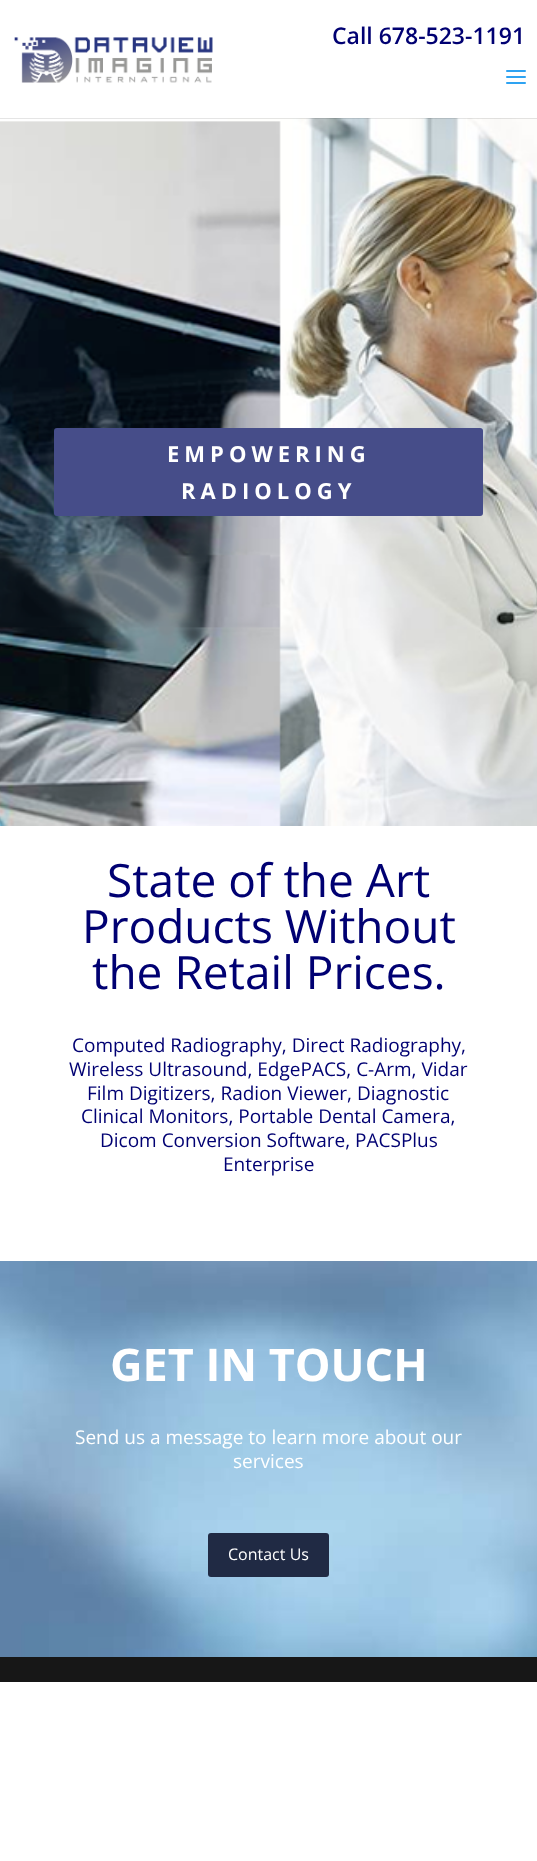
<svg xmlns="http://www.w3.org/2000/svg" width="537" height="1861">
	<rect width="100%" height="100%" fill="#FFFFFF" />
	<image x="0" y="118" width="537" height="708" href="assets/img3.png" />
	<rect x="0" y="118" width="537" height="1" fill="#000000" fill-opacity="0.1" />
	<image x="14" y="37" width="199" height="46" href="assets/img1.png" />
	<text x="332" y="44" font-family="Open Sans" font-size="23" font-weight="600" fill="#000072">Call 678-523-1191</text>
	<image x="506" y="70" width="20" height="14" href="assets/img2.png" />
	<rect x="54" y="428" width="429" height="88" rx="3" fill="#464D89" />
	<g font-family="Open Sans" font-size="22" font-weight="700" letter-spacing="5" fill="#FFFFFF">
		<text x="167" y="462">EMPOWERING</text>
		<text x="181" y="499">RADIOLOGY</text>
	</g>
	<g font-family="Open Sans" font-size="46" fill="#000072">
		<text x="107" y="897">State of the Art</text>
		<text x="82" y="943">Products Without</text>
		<text x="92" y="989">the Retail Prices.</text>
	</g>
	<g font-family="Open Sans" font-size="19" fill="#000072">
		<text x="72" y="1052">Computed Radiography, Direct Radiography,</text>
		<text x="69" y="1076">Wireless Ultrasound, EdgePACS, C-Arm, Vidar</text>
		<text x="87" y="1100">Film Digitizers, Radion Viewer, Diagnostic</text>
		<text x="81" y="1123">Clinical Monitors, Portable Dental Camera,</text>
		<text x="100" y="1147">Dicom Conversion Software, PACSPlus</text>
		<text x="223" y="1171">Enterprise</text>
	</g>
	<image x="0" y="1261" width="537" height="396" href="assets/img4.png" />
	<text x="110" y="1381" font-family="Open Sans" font-size="45" font-weight="700" fill="#FFFFFF">GET IN TOUCH</text>
	<g font-family="Open Sans" font-size="19" fill="#FFFFFF">
		<text x="75" y="1444">Send us a message to learn more about our</text>
		<text x="233" y="1468">services</text>
	</g>
	<rect x="208" y="1533" width="121" height="44" rx="3" fill="#202A44" />
	<text x="228" y="1560" font-family="Open Sans" font-size="16" fill="#FFFFFF">Contact Us</text>
	<rect x="0" y="1657" width="537" height="25" fill="#171717" />
</svg>
